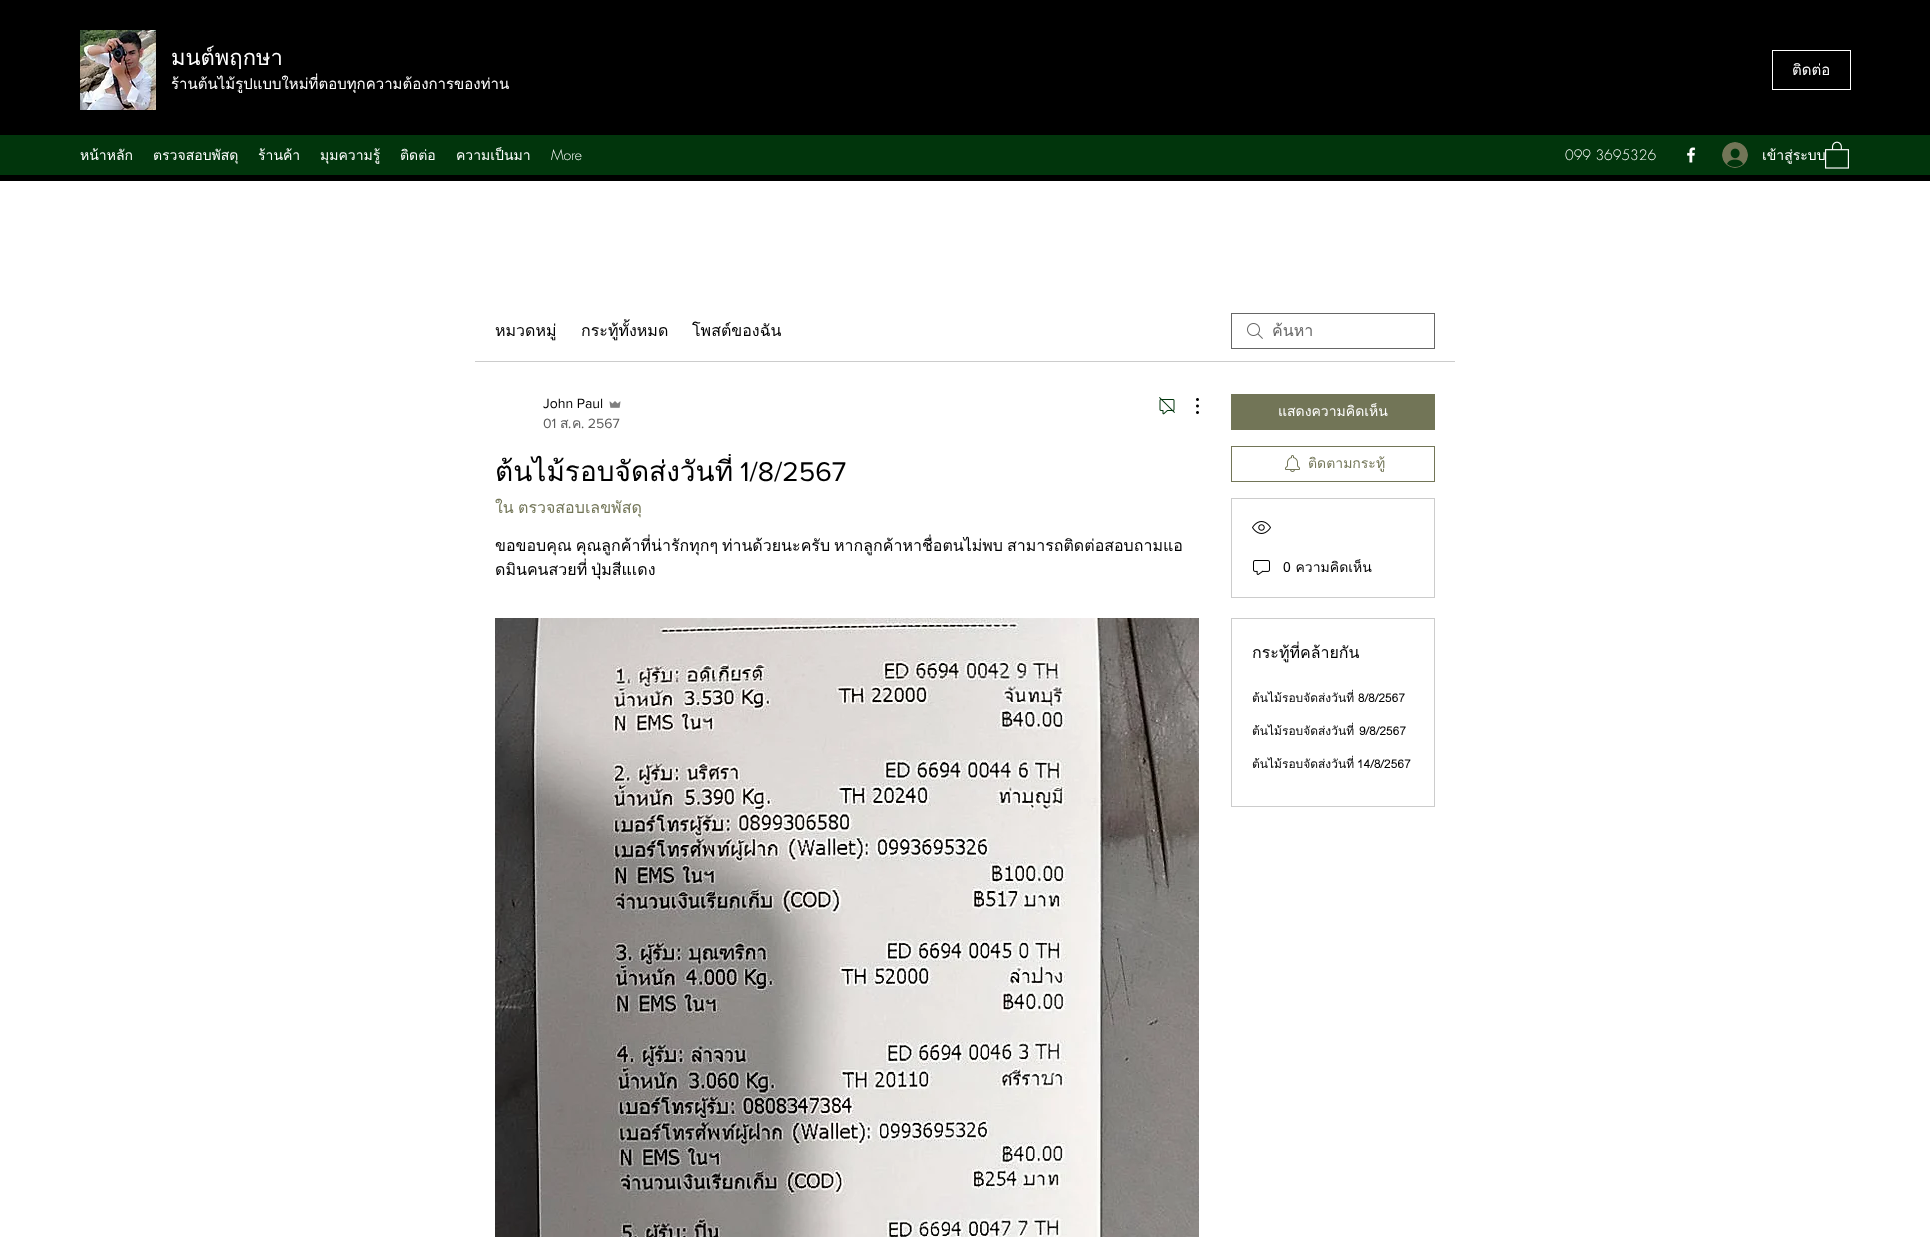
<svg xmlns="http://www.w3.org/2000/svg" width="1930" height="1237">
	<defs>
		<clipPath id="clip1"><rect x="1272" y="318" width="150" height="25" /></clipPath>
		<clipPath id="clip2"><rect x="495" y="454" width="352" height="36" /></clipPath>
		<clipPath id="clip3"><rect x="1252" y="687" width="162" height="21" /></clipPath>
		<clipPath id="clip4"><rect x="1252" y="720" width="162" height="21" /></clipPath>
		<clipPath id="clip5"><rect x="1252" y="753" width="162" height="21" /></clipPath>
	</defs>
	<rect width="100%" height="100%" fill="#FFFFFF" />
	<rect x="0" y="0" width="1930" height="181" fill="#000000" />
	<image x="80" y="30" width="76" height="80" href="assets/img1.png" />
	<text x="171" y="65" font-family="Loma" font-size="22" fill="#FFFFFF">มนต์พฤกษา</text>
	<text x="171" y="89" font-family="Loma" font-size="15" fill="#FFFFFF">ร้านต้นไม้รูปแบบใหม่ที่ตอบทุกความต้องการของท่าน</text>
	<rect x="1772.5" y="50.5" width="78" height="39" fill="none" stroke="#FFFFFF" />
	<text x="1792" y="75" font-family="Loma" font-size="15" fill="#FFFFFF">ติดต่อ</text>
	<rect x="0" y="135" width="1930" height="40" fill="#01350C" />
	<g font-family="Loma" font-size="14" fill="#FFFFFF">
		<text x="80" y="160">หน้าหลัก</text>
		<text x="153" y="160">ตรวจสอบพัสดุ</text>
		<text x="258" y="160">ร้านค้า</text>
		<text x="320" y="160">มุมความรู้</text>
		<text x="400" y="160">ติดต่อ</text>
		<text x="456" y="160">ความเป็นมา</text>
	</g>
	<g font-family="futura" font-size="14" font-weight="300" fill="#FFFFFF">
		<text x="551" y="160">More</text>
		<text x="1565" y="160">099 3695326</text>
	</g>
	<image x="1687" y="147" width="9" height="16" href="assets/img2.png" />
	<image x="1722" y="142" width="26" height="26" href="assets/img3.png" />
	<text x="1762" y="160" font-family="Loma" font-size="14" fill="#FFFFFF">เข้าสู่ระบบ</text>
	<image x="1825" y="141" width="24" height="28" href="assets/img4.png" />
	<rect x="475" y="361" width="980" height="1" fill="#CCCCCC" />
	<g font-family="Loma" font-size="16" fill="#000000">
		<text x="495" y="336">หมวดหมู่</text>
		<text x="581" y="336">กระทู้ทั้งหมด</text>
		<text x="692" y="336">โพสต์ของฉัน</text>
	</g>
	<image x="1247" y="323" width="16" height="16" href="assets/img5.png" />
	<rect x="1231.5" y="313.5" width="203" height="35" fill="none" stroke="#666666" />
	<g clip-path="url(#clip1)">
		<text x="1272" y="336" font-family="Loma" font-size="16" fill="#666666">ค้นหา</text>
	</g>
	<text x="543" y="408" font-family="'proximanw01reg'" font-size="14" fill="#000000">John Paul</text>
	<image x="609" y="401" width="12" height="7" href="assets/img6.png" />
	<text x="543" y="428" font-family="'proximanw01reg'" font-size="14" fill="#5C5C5C">01</text>
	<text x="560" y="428" font-family="Loma" font-size="14" fill="#5C5C5C">ส</text>
	<text x="568" y="428" font-family="'proximanw01reg'" font-size="14" fill="#5C5C5C">.</text>
	<text x="572" y="428" font-family="Loma" font-size="14" fill="#5C5C5C">ค</text>
	<text x="581" y="428" font-family="'proximanw01reg'" font-size="14" fill="#5C5C5C">. 2567</text>
	<image x="1159" y="397" width="16" height="18" href="assets/img7.png" />
	<image x="1196" y="398" width="3" height="16" href="assets/img8.png" />
	<g clip-path="url(#clip2)">
		<text x="495" y="481" font-family="Loma" font-size="28" fill="#000000">ต้นไม้รอบจัดส่งวันที่</text>
	</g>
	<text x="740" y="481" font-family="'proximanw01reg'" font-size="28" fill="#000000">1/8/2567</text>
	<g font-family="Loma" font-size="16" fill="#727557">
		<text x="495" y="513">ใน</text>
		<text x="518" y="513">ตรวจสอบเลขพัสดุ</text>
	</g>
	<g font-family="Loma" font-size="16" fill="#000000">
		<text x="495" y="551" word-spacing="-1.5">ขอขอบคุณ คุณลูกค้าที่น่ารักทุกๆ ท่านด้วยนะครับ หากลูกค้าหาชื่อตนไม่พบ สามารถติดต่อสอบถามแอ</text>
		<text x="495" y="575" word-spacing="-1.5">ดมินคนสวยที่ ปุ่มสีแเดง</text>
	</g>
	<image x="495" y="618" width="704" height="619" href="assets/img9.png" />
	<rect x="1231" y="394" width="204" height="36" fill="#727557" />
	<text x="1278" y="416" font-family="Loma" font-size="14" fill="#FFFFFF">แสดงความคิดเห็น</text>
	<rect x="1231.5" y="446.5" width="203" height="35" fill="none" stroke="#727557" />
	<image x="1285" y="455" width="15" height="17" href="assets/img10.png" />
	<text x="1308" y="468" font-family="Loma" font-size="14" fill="#727557">ติดตามกระทู้</text>
	<rect x="1231.5" y="498.5" width="203" height="99" fill="none" stroke="#CCCCCC" />
	<image x="1252" y="521" width="19" height="13" href="assets/img11.png" />
	<image x="1253" y="560" width="17" height="15" href="assets/img12.png" />
	<text x="1283" y="572" font-family="Loma" font-size="14" fill="#000000">0 ความคิดเห็น</text>
	<rect x="1231.5" y="618.5" width="203" height="188" fill="none" stroke="#CCCCCC" />
	<text x="1252" y="658" font-family="Loma" font-size="16" fill="#000000">กระทู้ที่คล้ายกัน</text>
	<g clip-path="url(#clip3)">
		<text x="1252" y="702" font-family="Loma" font-size="12" fill="#000000">ต้นไม้รอบจัดส่งวันที่ 8/8/2567</text>
	</g>
	<g clip-path="url(#clip4)">
		<text x="1252" y="735" word-spacing="1" font-family="Loma" font-size="12" fill="#000000">ต้นไม้รอบจัดส่งวันที่ 9/8/2567</text>
	</g>
	<g clip-path="url(#clip5)">
		<text x="1252" y="768" word-spacing="-1" font-family="Loma" font-size="12" fill="#000000">ต้นไม้รอบจัดส่งวันที่ 14/8/2567</text>
	</g>
</svg>
